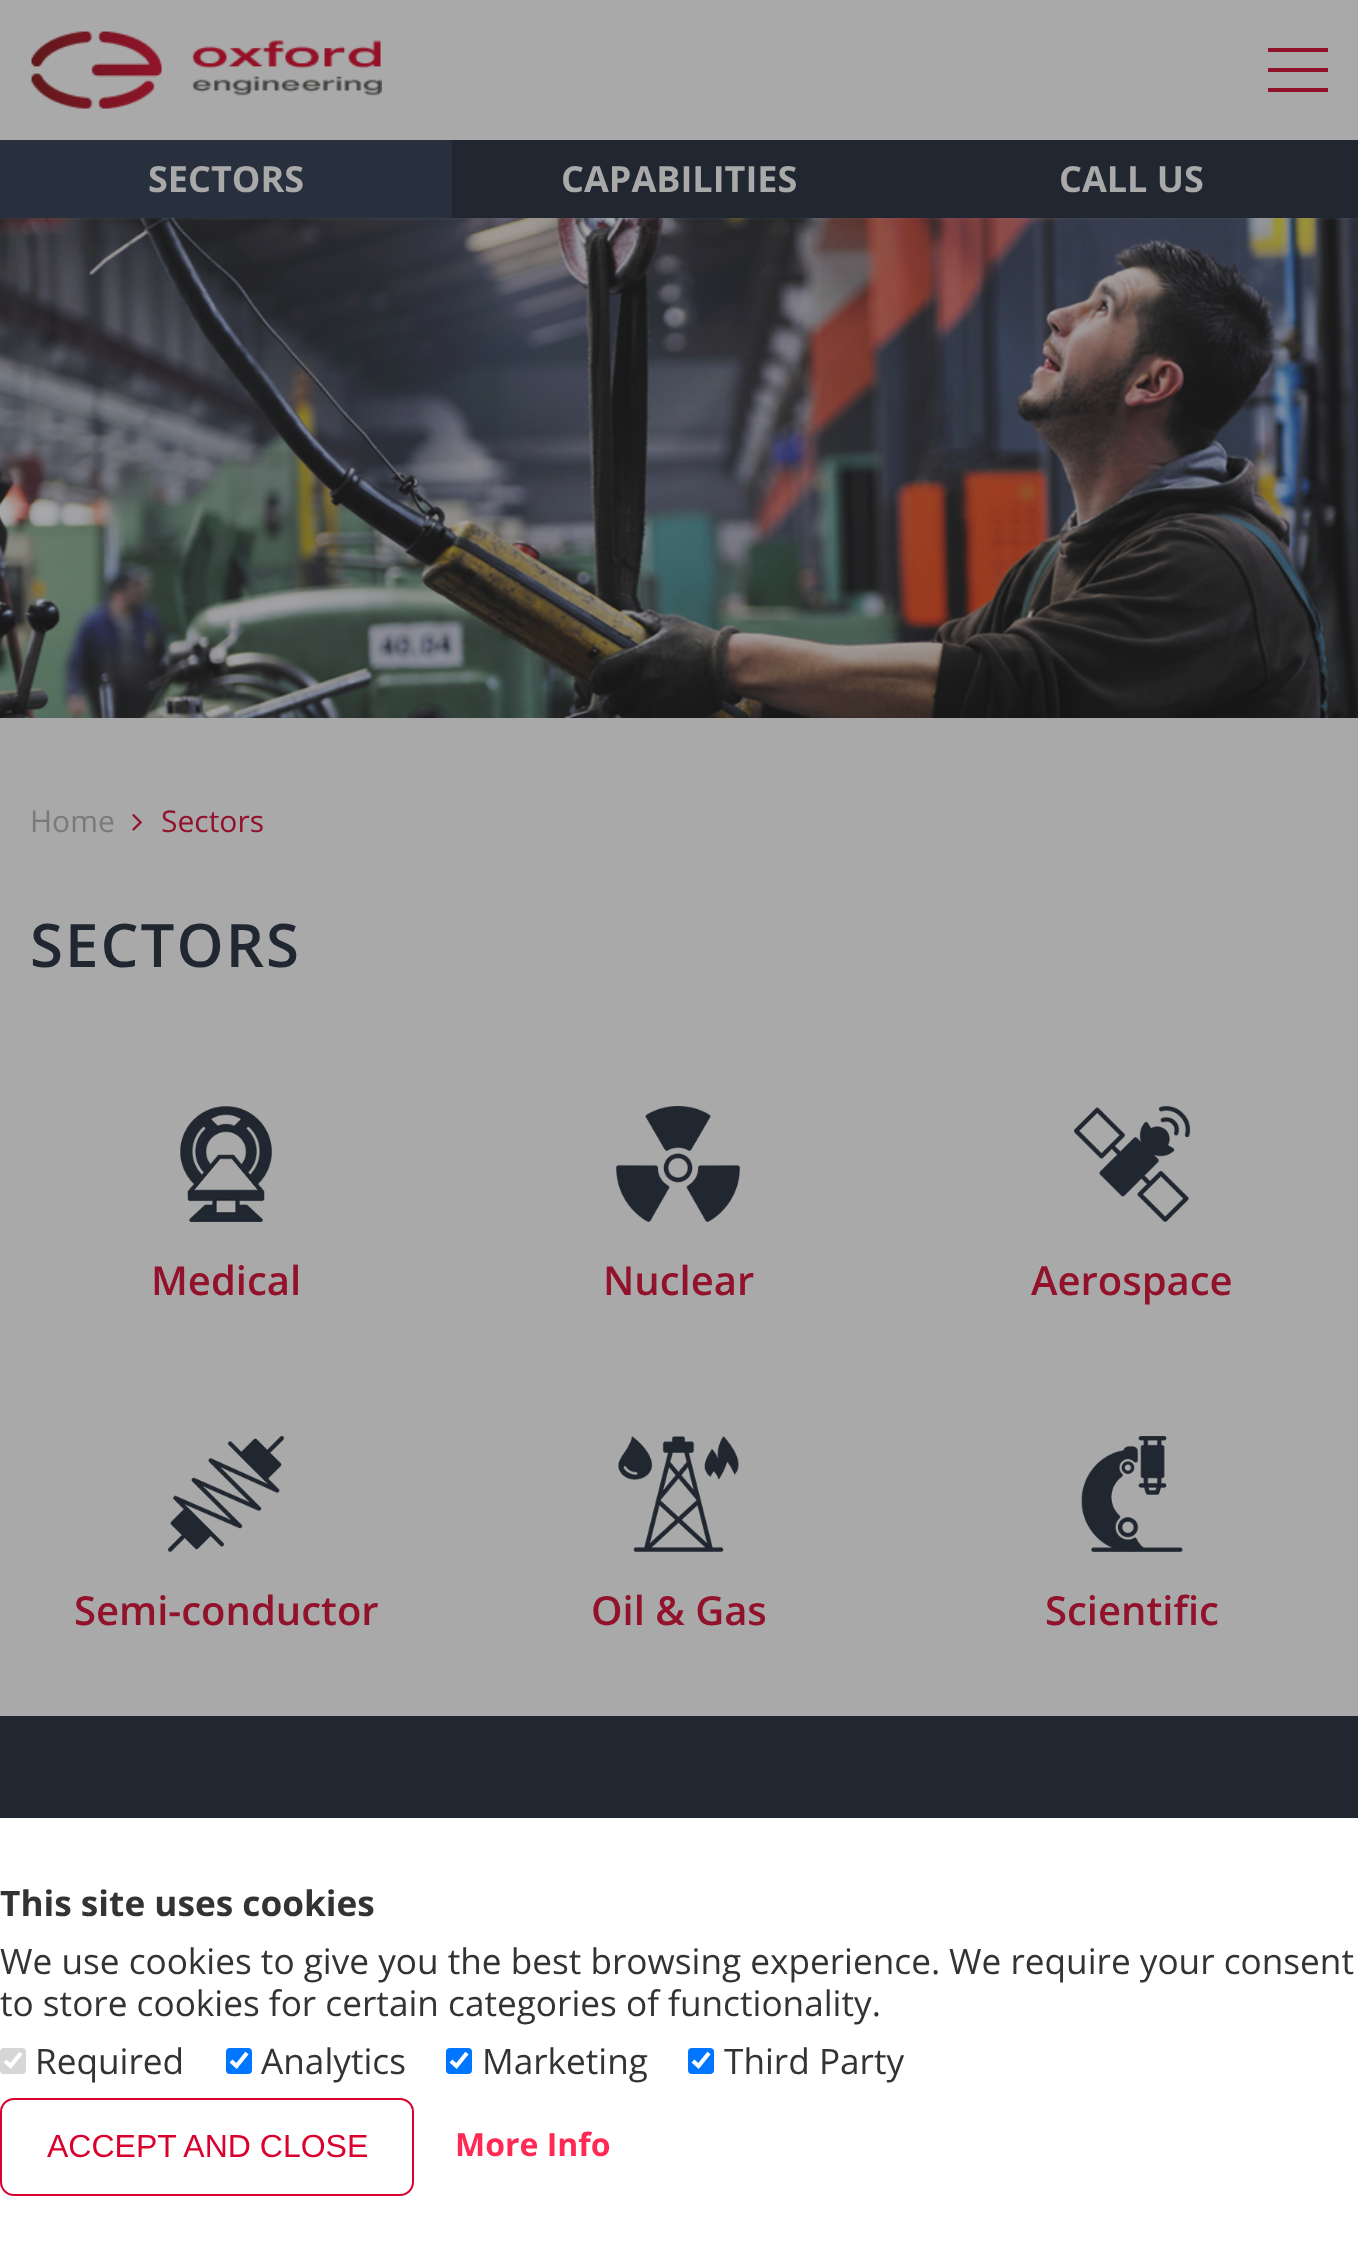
<svg xmlns="http://www.w3.org/2000/svg" width="1358" height="2260">
	<rect width="100%" height="100%" fill="#A9A9A9" />
	<image x="31" y="31" width="351" height="78" href="assets/img1.png" />
	<rect x="1268" y="48" width="60" height="4" fill="#92112B" />
	<rect x="1268" y="68" width="60" height="4" fill="#92112B" />
	<rect x="1268" y="88" width="60" height="4" fill="#92112B" />
	<rect x="452" y="140" width="906" height="78" fill="#212731" />
	<rect x="0" y="140" width="452" height="78" fill="#28303E" />
	<g font-family="Open Sans" font-size="36" font-weight="700" fill="#A9A9A9">
		<text x="148" y="192">SECTORS</text>
		<text x="561" y="192">CAPABILITIES</text>
		<text x="1059" y="192">CALL US</text>
	</g>
	<image x="0" y="218" width="1358" height="500" href="assets/img2.png" />
	<text x="30" y="832" font-family="Open Sans" font-size="30" fill="#7A7A7A">Home</text>
	<image x="132" y="814" width="10" height="17" href="assets/img3.png" />
	<text x="161" y="832" font-family="Open Sans" font-size="30" fill="#92112B">Sectors</text>
	<text x="30" y="967" font-family="Open Sans" font-size="60" font-weight="600" letter-spacing="2" fill="#212731">SECTORS</text>
	<image x="180" y="1106" width="92" height="116" href="assets/img4.png" />
	<text x="151" y="1295" font-family="Open Sans" font-size="40" font-weight="600" fill="#92112B">Medical</text>
	<image x="616" y="1106" width="124" height="116" href="assets/img5.png" />
	<text x="603" y="1295" font-family="Open Sans" font-size="40" font-weight="600" fill="#92112B">Nuclear</text>
	<image x="1074" y="1106" width="117" height="116" href="assets/img6.png" />
	<text x="1031" y="1295" font-family="Open Sans" font-size="40" font-weight="600" fill="#92112B">Aerospace</text>
	<image x="168" y="1436" width="117" height="116" href="assets/img7.png" />
	<text x="74" y="1625" font-family="Open Sans" font-size="40" font-weight="600" fill="#92112B">Semi-conductor</text>
	<image x="618" y="1436" width="121" height="116" href="assets/img8.png" />
	<text x="591" y="1625" font-family="Open Sans" font-size="40" font-weight="600" fill="#92112B">Oil &amp; Gas</text>
	<image x="1081" y="1436" width="102" height="116" href="assets/img9.png" />
	<text x="1045" y="1625" font-family="Open Sans" font-size="40" font-weight="600" fill="#92112B">Scientific</text>
	<rect x="0" y="1716" width="1358" height="102" fill="#212731" />
	<rect x="0" y="1818" width="1358" height="442" fill="#FFFFFF" />
	<text x="0" y="1916" font-family="Open Sans" font-size="35.2" font-weight="700" fill="#333333">This site uses cookies</text>
	<g font-family="Open Sans" font-size="35.2" fill="#333333">
		<text x="0" y="1974">We use cookies to give you the best browsing experience.</text>
		<text x="949" y="1974">We require your consent</text>
		<text x="0" y="2016">to store cookies for certain categories of functionality.</text>
	</g>
	<rect x="0" y="2048" width="26" height="26" rx="4" fill="#D6D6D6" />
	<path d="M5 2061L10.5 2066L21 2053" fill="none" stroke="#FFFFFF" stroke-width="4.2" />
	<text x="35" y="2074" font-family="Open Sans" font-size="35.2" fill="#333333">Required</text>
	<rect x="226" y="2048" width="26" height="26" rx="4" fill="#0075FF" />
	<path d="M231 2061L236.5 2066L247 2053" fill="none" stroke="#FFFFFF" stroke-width="4.2" />
	<text x="261" y="2074" font-family="Open Sans" font-size="35.2" fill="#333333">Analytics</text>
	<rect x="446" y="2048" width="26" height="26" rx="4" fill="#0075FF" />
	<path d="M451 2061L456.5 2066L467 2053" fill="none" stroke="#FFFFFF" stroke-width="4.2" />
	<text x="482" y="2074" font-family="Open Sans" font-size="35.2" fill="#333333">Marketing</text>
	<rect x="688" y="2048" width="26" height="26" rx="4" fill="#0075FF" />
	<path d="M693 2061L698.5 2066L709 2053" fill="none" stroke="#FFFFFF" stroke-width="4.2" />
	<text x="724" y="2074" font-family="Open Sans" font-size="35.2" fill="#333333">Third Party</text>
	<rect x="1" y="2099" width="412" height="96" rx="13" fill="none" stroke="#D9012D" stroke-width="2" />
	<text x="47" y="2157" font-family="Liberation Sans" font-size="32" fill="#D9012D">ACCEPT AND CLOSE</text>
	<text x="455" y="2156" font-family="Open Sans" font-size="32" font-weight="700" fill="#FF2954">More Info</text>
</svg>
